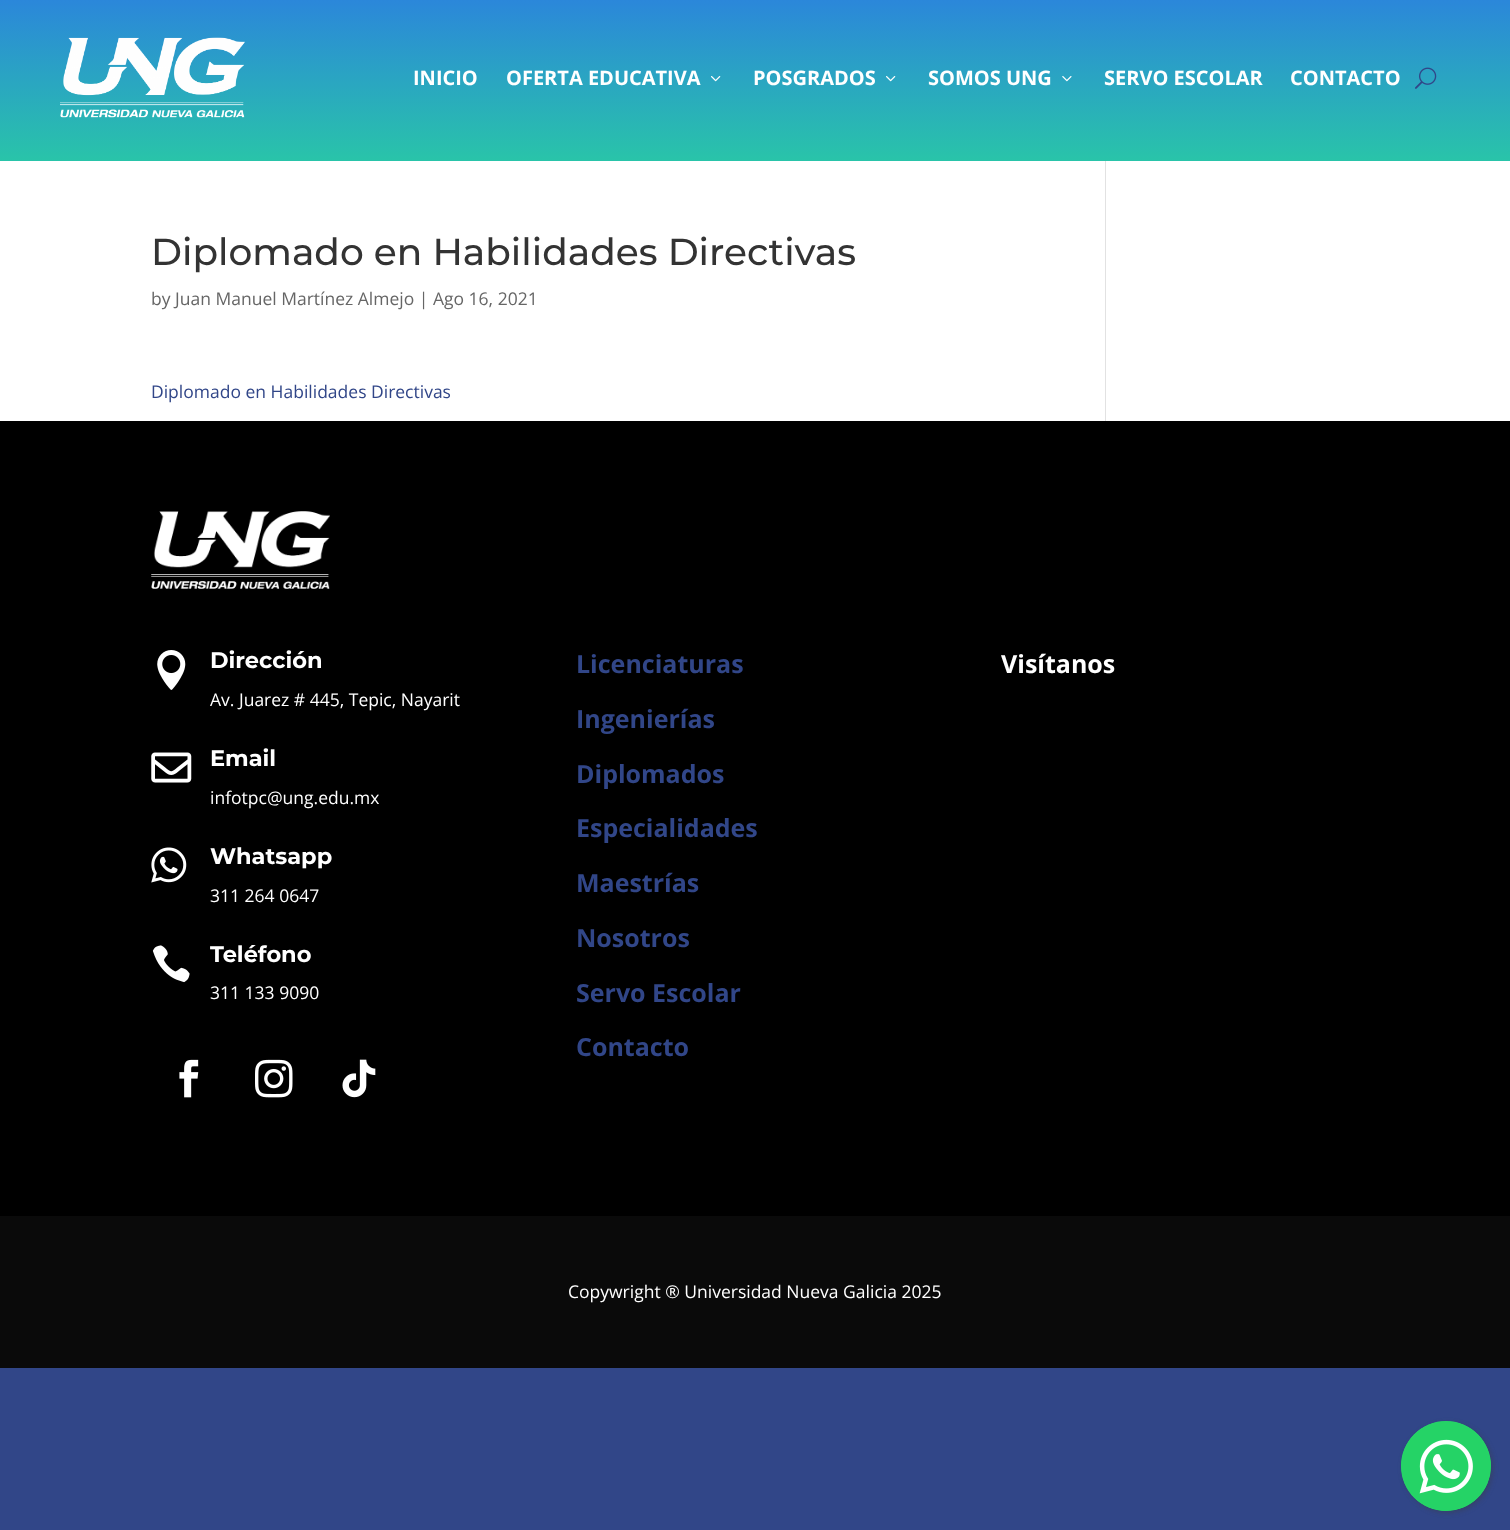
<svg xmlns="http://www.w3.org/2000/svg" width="1510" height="1530">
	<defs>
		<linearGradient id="g1" gradientUnits="userSpaceOnUse" x1="755" y1="0" x2="755" y2="161"><stop offset="0" stop-color="#2B87DA" /><stop offset="1" stop-color="#29C4A9" /></linearGradient>
	</defs>
	<rect width="100%" height="100%" fill="#314688" />
	<rect x="0" y="0" width="1510" height="161" fill="url(#g1)" />
	<image x="60" y="37" width="185" height="81" href="assets/img1.png" />
	<g font-family="Open Sans" font-size="20" font-weight="700" fill="#FFFFFF">
		<text x="413" y="85">INICIO</text>
		<text x="506" y="85">OFERTA EDUCATIVA</text>
	</g>
	<image x="711" y="76" width="10" height="6" href="assets/img2.png" />
	<text x="753" y="85" font-family="Open Sans" font-size="20" font-weight="700" fill="#FFFFFF">POSGRADOS</text>
	<image x="886" y="76" width="10" height="6" href="assets/img2.png" />
	<text x="928" y="85" font-family="Open Sans" font-size="20" font-weight="700" fill="#FFFFFF">SOMOS UNG</text>
	<image x="1062" y="76" width="10" height="6" href="assets/img3.png" />
	<g font-family="Open Sans" font-size="20" font-weight="700" fill="#FFFFFF">
		<text x="1104" y="85">SERVO ESCOLAR</text>
		<text x="1290" y="85">CONTACTO</text>
	</g>
	<image x="1415" y="67" width="22" height="22" href="assets/img4.png" />
	<rect x="0" y="161" width="1510" height="260" fill="#FFFFFF" />
	<text x="151" y="265" font-family="Montserrat" font-size="37.5" font-weight="500" fill="#333333">Diplomado en Habilidades Directivas</text>
	<text x="151" y="305" font-family="Open Sans" font-size="17.5" fill="#666666">by Juan Manuel Martínez Almejo | Ago 16, 2021</text>
	<text x="151" y="398" font-family="Open Sans" font-size="17.5" fill="#314688">Diplomado en Habilidades Directivas</text>
	<rect x="1105" y="161" width="1" height="260" fill="#E2E2E2" />
	<rect x="0" y="421" width="1510" height="795" fill="#000000" />
	<image x="151" y="511" width="179" height="78" href="assets/img5.png" />
	<image x="157" y="650" width="29" height="40" href="assets/img6.png" />
	<text x="210" y="668" font-family="Montserrat" font-size="22.5" font-weight="700" fill="#FFFFFF">Dirección</text>
	<text x="210" y="706" font-family="Open Sans" font-size="17.5" fill="#FFFFFF">Av. Juarez # 445, Tepic, Nayarit</text>
	<image x="151" y="752" width="41" height="31" href="assets/img7.png" />
	<text x="210" y="766" font-family="Montserrat" font-size="22.5" font-weight="700" fill="#FFFFFF">Email</text>
	<text x="210" y="804" font-family="Open Sans" font-size="17.5" fill="#FFFFFF">infotpc@ung.edu.mx</text>
	<image x="151" y="847" width="36" height="36" href="assets/img8.png" />
	<text x="210" y="864" font-family="Montserrat" font-size="22.5" font-weight="700" fill="#FFFFFF">Whatsapp</text>
	<text x="210" y="902" font-family="Open Sans" font-size="17.5" fill="#FFFFFF">311 264 0647</text>
	<image x="152" y="945" width="38" height="38" href="assets/img9.png" />
	<text x="210" y="962" font-family="Montserrat" font-size="22.5" font-weight="700" fill="#FFFFFF">Teléfono</text>
	<text x="210" y="999" font-family="Open Sans" font-size="17.5" fill="#FFFFFF">311 133 9090</text>
	<image x="179" y="1059" width="20" height="39" href="assets/img10.png" />
	<image x="255" y="1059" width="38" height="39" href="assets/img11.png" />
	<image x="342" y="1059" width="34" height="39" href="assets/img12.png" />
	<g font-family="Open Sans" font-size="25" font-weight="700" fill="#314688">
		<text x="576" y="673">Licenciaturas</text>
		<text x="576" y="728">Ingenierías</text>
		<text x="576" y="783">Diplomados</text>
		<text x="576" y="837">Especialidades</text>
		<text x="576" y="892">Maestrías</text>
		<text x="576" y="947">Nosotros</text>
		<text x="576" y="1002">Servo Escolar</text>
		<text x="576" y="1056">Contacto</text>
	</g>
	<text x="1001" y="673" font-family="Open Sans" font-size="25" font-weight="700" fill="#FFFFFF">Visítanos</text>
	<rect x="0" y="1216" width="1510" height="152" fill="#0A0A0A" />
	<text x="568" y="1298" font-family="Open Sans" font-size="17.5" fill="#FFFFFF">Copywright ® Universidad Nueva Galicia 2025</text>
	<rect x="1403" y="1423" width="90" height="90" rx="45" fill="#3C3C3C" fill-opacity="0.4" filter="blur(2.5px)" />
	<circle cx="1446" cy="1466" r="45" fill="#25D366" />
	<image x="1401" y="1421" width="90" height="90" href="assets/img13.png" />
</svg>
